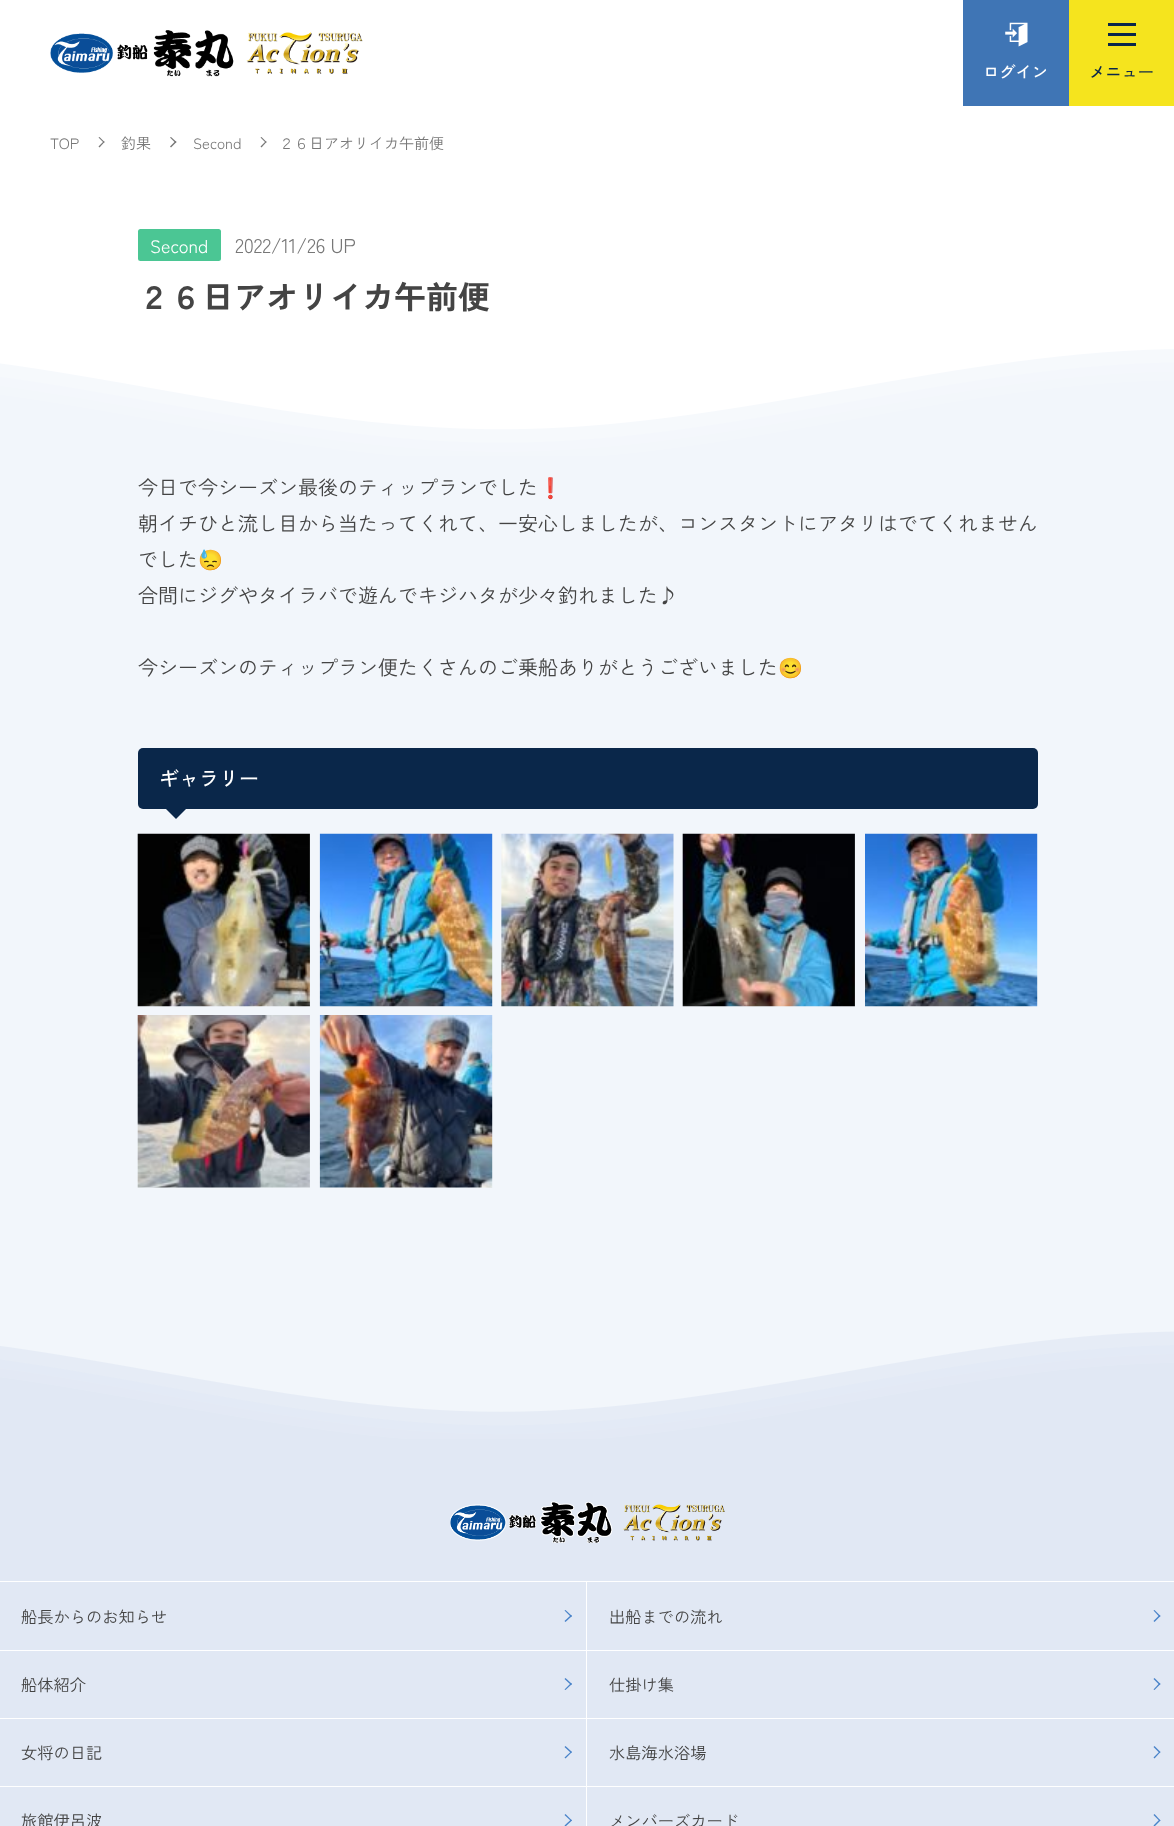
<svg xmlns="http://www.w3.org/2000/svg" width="1174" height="1826">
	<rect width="100%" height="100%" fill="#FFFFFF" />
	<image x="50" y="30" width="313" height="47" href="assets/img1.png" />
	<rect x="963" y="0" width="106" height="106" fill="#3F75B5" />
	<image x="1005" y="22" width="23" height="25" href="assets/img2.png" />
	<text x="983" y="78" font-family="Zen Kaku Gothic New" font-size="16.25" font-weight="500" fill="#FFFFFF">ログイン</text>
	<rect x="1069" y="0" width="105" height="106" fill="#F5E41E" />
	<rect x="1108" y="23" width="28" height="3" fill="#0A274A" />
	<rect x="1108" y="33" width="28" height="3" fill="#0A274A" />
	<rect x="1108" y="43" width="28" height="3" fill="#0A274A" />
	<text x="1089" y="78" font-family="Zen Kaku Gothic New" font-size="16.25" font-weight="500" fill="#0A274A">メニュー</text>
	<text x="50" y="149" font-family="Zen Kaku Gothic New" font-size="15" fill="#777777">TOP</text>
	<path d="M99.5 137L104.5 142L104 143L98.5 137.5Z" fill="#777777" />
	<path d="M104 141L104.5 142L99.5 147.5L98.5 146.5Z" fill="#777777" />
	<text x="121" y="149" font-family="Zen Kaku Gothic New" font-size="15" fill="#777777">釣果</text>
	<path d="M171 137L176.5 142L175.5 143L170 137.5Z" fill="#777777" />
	<path d="M175.5 141L176.5 142L171 147.5L170 146.5Z" fill="#777777" />
	<text x="193" y="149" font-family="Zen Kaku Gothic New" font-size="15" fill="#777777">Second</text>
	<path d="M261.5 137L266.5 142L266 143L260.5 137.5Z" fill="#777777" />
	<path d="M266 141L266.5 142L261.5 147.5L260.5 146.5Z" fill="#777777" />
	<text x="279" y="149" font-family="Zen Kaku Gothic New" font-size="15" fill="#777777">２６日アオリイカ午前便</text>
	<rect x="138" y="229" width="83" height="32" rx="2.5" fill="#4BC694" />
	<text x="150" y="253" font-family="Zen Kaku Gothic New" font-size="18" fill="#FFFFFF">Second</text>
	<text x="235" y="253" font-family="Zen Kaku Gothic New" font-size="20" letter-spacing="-0.25" fill="#777777">2022/11/26 UP</text>
	<text x="138" y="309" font-family="Zen Kaku Gothic New" font-size="32" font-weight="700" fill="#444444">２６日アオリイカ午前便</text>
	<image x="0" y="349" width="1174" height="107" href="assets/img3.png" />
	<rect x="0" y="456" width="1174" height="983" fill="#F2F6FB" />
	<text x="138" y="495" font-family="Zen Kaku Gothic New" font-size="20" fill="#444444">今日で今シーズン最後のティップランでした</text>
	<text x="538" y="495" font-family="Noto Color Emoji" font-size="20" fill="#444444">❗️</text>
	<g font-family="Zen Kaku Gothic New" font-size="20" fill="#444444">
		<text x="138" y="531">朝イチひと流し目から当たってくれて、一安心しましたが、コンスタントにアタリはでてくれません</text>
		<text x="138" y="567">でした</text>
	</g>
	<text x="198" y="567" font-family="Noto Color Emoji" font-size="20" fill="#444444">😓</text>
	<g font-family="Zen Kaku Gothic New" font-size="20" fill="#444444">
		<text x="138" y="603">合間にジグやタイラバで遊んでキジハタが少々釣れました♪</text>
		<text x="138" y="675">今シーズンのティップラン便たくさんのご乗船ありがとうございました</text>
	</g>
	<text x="778" y="675" font-family="Noto Color Emoji" font-size="20" fill="#444444">😊</text>
	<rect x="138" y="748" width="900" height="61" rx="5" fill="#0A274A" />
	<text x="159" y="786" font-family="Zen Kaku Gothic New" font-size="20" font-weight="500" fill="#FFFFFF">ギャラリー</text>
	<path d="M166 809H186L176 819Z" fill="#0A274A" />
	<image x="137" y="833" width="173" height="174" href="assets/img4.png" />
	<image x="319" y="833" width="174" height="174" href="assets/img5.png" />
	<image x="501" y="833" width="173" height="174" href="assets/img6.png" />
	<image x="682" y="833" width="173" height="174" href="assets/img7.png" />
	<image x="865" y="833" width="173" height="174" href="assets/img8.png" />
	<image x="137" y="1015" width="173" height="173" href="assets/img9.png" />
	<image x="319" y="1015" width="174" height="173" href="assets/img10.png" />
	<image x="0" y="1331" width="1174" height="108" href="assets/img11.png" />
	<rect x="0" y="1439" width="1174" height="387" fill="#E1E8F4" />
	<image x="450" y="1501" width="275" height="43" href="assets/img12.png" />
	<rect x="0" y="1581" width="1174" height="1" fill="#FFFFFF" />
	<rect x="586" y="1581" width="1" height="69" fill="#FFFFFF" />
	<text x="21" y="1623" font-family="Zen Kaku Gothic New" font-size="16.25" fill="#444444">船長からのお知らせ</text>
	<path d="M565.5 1610L572 1616L571 1617L564.5 1610.5Z" fill="#4983C9" />
	<path d="M571 1615L572 1616L565.5 1622L564.5 1621Z" fill="#4983C9" />
	<text x="609" y="1623" font-family="Zen Kaku Gothic New" font-size="16.25" fill="#444444">出船までの流れ</text>
	<path d="M1154.5 1610L1160.5 1616L1159.5 1617L1153.5 1610.5Z" fill="#4983C9" />
	<path d="M1159.5 1615L1160.5 1616L1154.5 1622L1153.5 1621Z" fill="#4983C9" />
	<rect x="0" y="1650" width="1174" height="1" fill="#FFFFFF" />
	<rect x="586" y="1650" width="1" height="68" fill="#FFFFFF" />
	<text x="21" y="1691" font-family="Zen Kaku Gothic New" font-size="16.25" fill="#444444">船体紹介</text>
	<path d="M565.5 1678L572 1684L571 1685L564.5 1679Z" fill="#4983C9" />
	<path d="M571 1683L572 1684L565.5 1690L564.5 1689.5Z" fill="#4983C9" />
	<text x="609" y="1691" font-family="Zen Kaku Gothic New" font-size="16.25" fill="#444444">仕掛け集</text>
	<path d="M1154.5 1678L1160.5 1684L1159.5 1685L1153.5 1679Z" fill="#4983C9" />
	<path d="M1159.5 1683L1160.5 1684L1154.5 1690L1153.5 1689.5Z" fill="#4983C9" />
	<rect x="0" y="1718" width="1174" height="1" fill="#FFFFFF" />
	<rect x="586" y="1718" width="1" height="68" fill="#FFFFFF" />
	<text x="21" y="1759" font-family="Zen Kaku Gothic New" font-size="16.25" fill="#444444">女将の日記</text>
	<path d="M565.5 1746L572 1752L571 1753L564.5 1747Z" fill="#4983C9" />
	<path d="M571 1751.5L572 1752L565.5 1758.5L564.5 1757.5Z" fill="#4983C9" />
	<text x="609" y="1759" font-family="Zen Kaku Gothic New" font-size="16.25" fill="#444444">水島海水浴場</text>
	<path d="M1154.5 1746L1160.5 1752L1159.5 1753L1153.5 1747Z" fill="#4983C9" />
	<path d="M1159.5 1751.5L1160.5 1752L1154.5 1758.5L1153.5 1757.5Z" fill="#4983C9" />
	<rect x="0" y="1786" width="1174" height="1" fill="#FFFFFF" />
	<rect x="586" y="1786" width="1" height="40" fill="#FFFFFF" />
	<text x="21" y="1827" font-family="Zen Kaku Gothic New" font-size="16.25" fill="#444444">旅館伊呂波</text>
	<path d="M565.5 1814L572 1820.5L571 1821L564.5 1815Z" fill="#4983C9" />
	<path d="M571 1819.5L572 1820.5L565.5 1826.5L564.5 1825.5Z" fill="#4983C9" />
	<text x="609" y="1827" font-family="Zen Kaku Gothic New" font-size="16.25" fill="#444444">メンバーズカード</text>
	<path d="M1154.5 1814L1160.5 1820.5L1159.5 1821L1153.5 1815Z" fill="#4983C9" />
	<path d="M1159.5 1819.5L1160.5 1820.5L1154.5 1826.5L1153.5 1825.5Z" fill="#4983C9" />
</svg>
